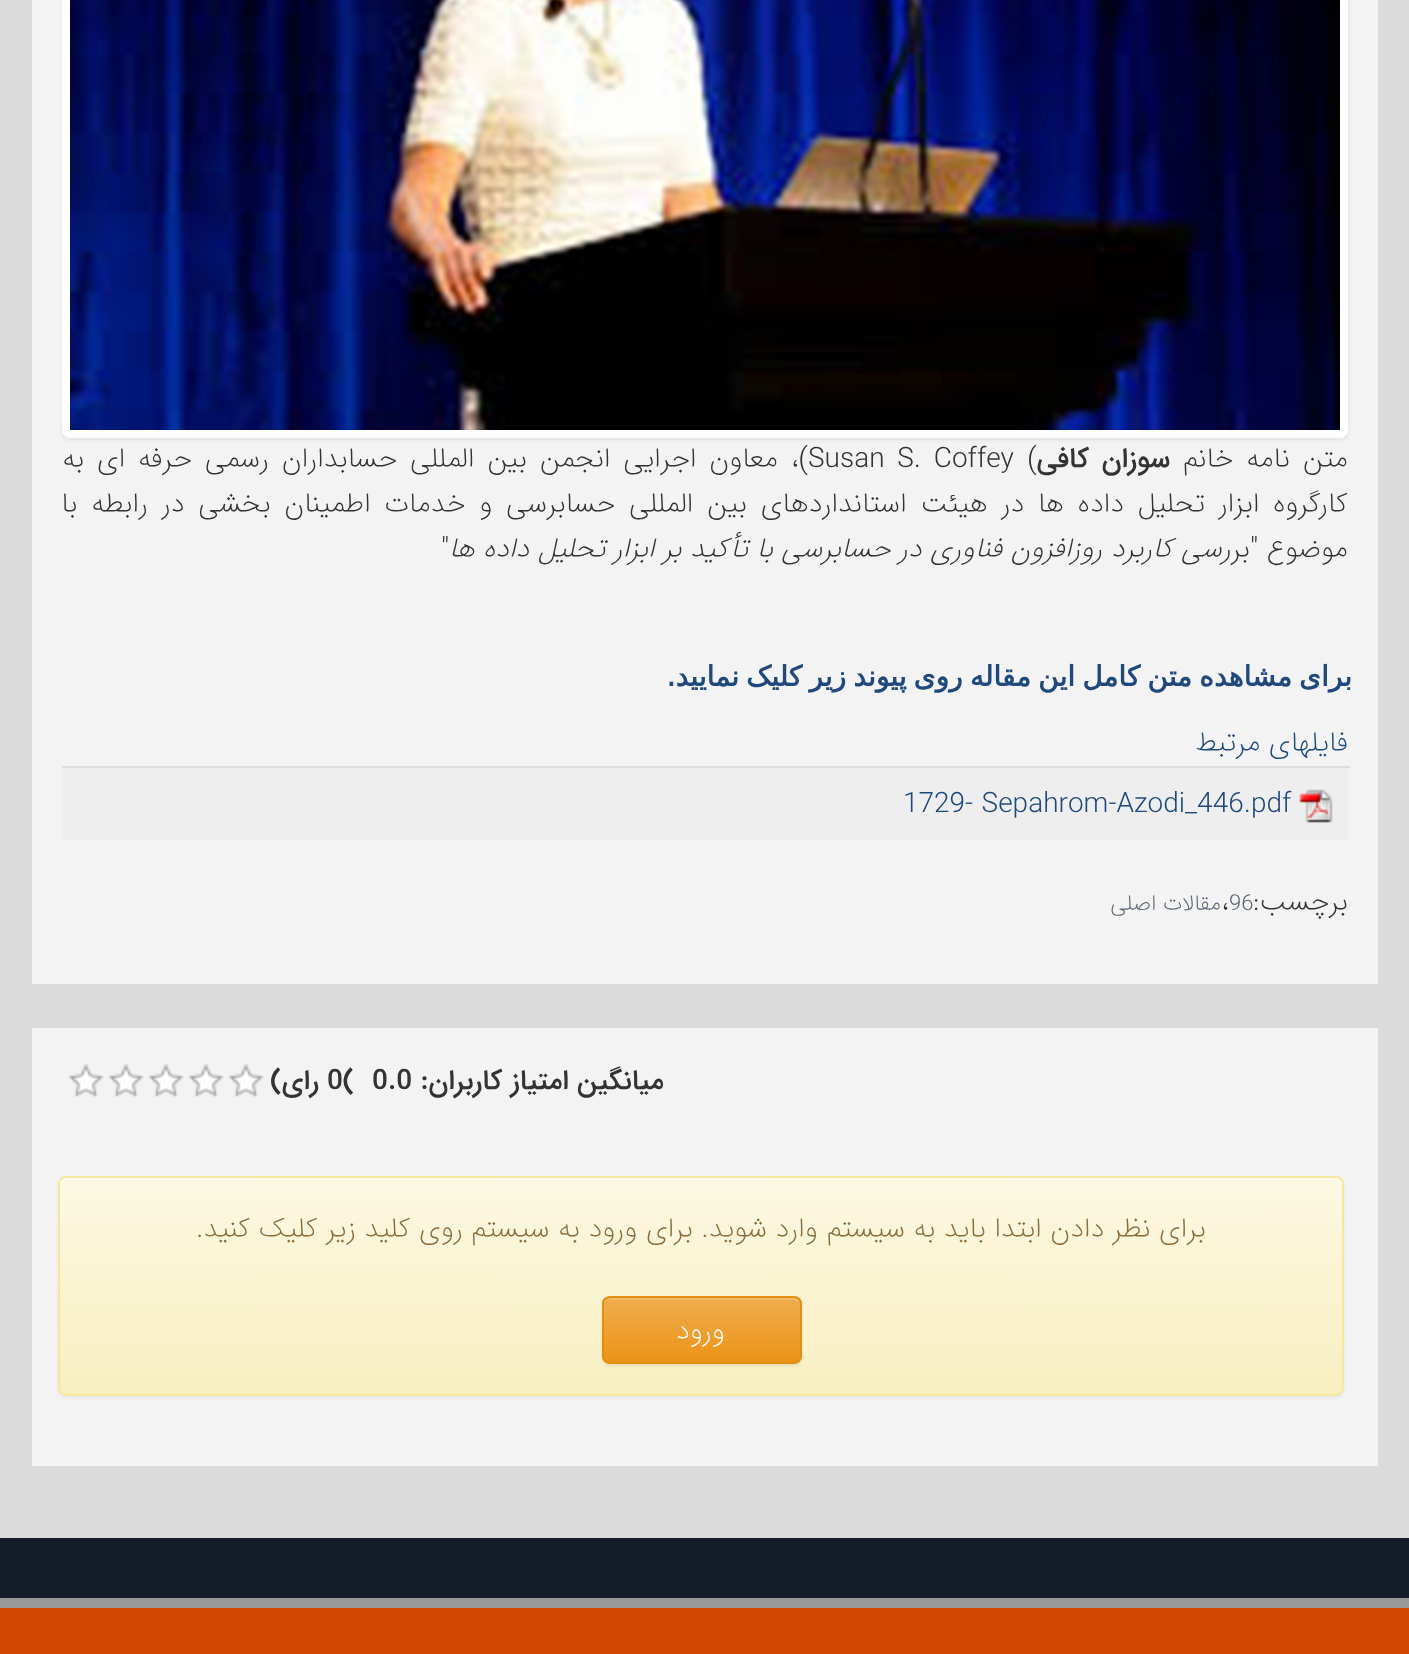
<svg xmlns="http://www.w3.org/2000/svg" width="1409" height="1654">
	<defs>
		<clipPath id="clip1"><rect x="58" y="1176" width="1286" height="220" rx="8" /></clipPath>
		<linearGradient id="g1" gradientUnits="userSpaceOnUse" x1="701" y1="1178" x2="701" y2="1394"><stop offset="0" stop-color="#FCF8E3" /><stop offset="1" stop-color="#F8EFC0" /></linearGradient>
		<clipPath id="clip2"><rect x="602" y="1296" width="200" height="68" rx="8" /></clipPath>
		<linearGradient id="g2" gradientUnits="userSpaceOnUse" x1="702" y1="1298" x2="702" y2="1362"><stop offset="0" stop-color="#F0AD4E" /><stop offset="1" stop-color="#EB9316" /></linearGradient>
	</defs>
	<rect width="100%" height="100%" fill="#DBDBDB" />
	<rect x="32" y="0" width="1346" height="984" fill="#F3F3F3" />
	<rect x="62" y="-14" width="1286" height="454" rx="8" fill="#000000" fill-opacity="0.07" filter="blur(2px)" />
	<rect x="62" y="-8" width="1286" height="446" rx="8" fill="#FFFFFF" />
	<image x="70" y="0" width="1270" height="430" href="assets/img1.png" />
	<text x="1348" y="467" word-spacing="4.25" font-family="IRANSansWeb" font-size="28" font-weight="200" direction="rtl" fill="#333333">متن نامه خانم</text>
	<text x="1170" y="467" word-spacing="4.25" font-family="IRANSansWeb" font-size="28" font-weight="500" direction="rtl" fill="#333333">سوزان کافی</text>
	<g font-family="IRANSansWeb" font-size="28" font-weight="200" fill="#333333">
		<text x="1027" y="467">(</text>
		<text x="808" y="467" word-spacing="4.25">Susan S. Coffey</text>
	</g>
	<g font-family="IRANSansWeb" font-size="28" font-weight="200" direction="rtl" fill="#333333">
		<text x="808" y="467" word-spacing="4.25">)، معاون اجرایی انجمن بین المللی حسابداران رسمی حرفه ای به</text>
		<text x="1348" y="512" word-spacing="5.25">کارگروه ابزار تحلیل داده ها در هیئت استانداردهای بین المللی حسابرسی و خدمات اطمینان بخشی در رابطه با</text>
		<text x="1348" y="557">موضوع "بر</text>
	</g>
	<text x="1231" y="557" font-family="IRANSansWeb" font-size="28" font-weight="200" font-style="italic" direction="rtl" fill="#333333">رسی کاربرد روزافزون فناوری در حسابرسی با تأکید بر ابزار تحلیل داده ها</text>
	<text x="441" y="557" font-family="IRANSansWeb" font-size="28" font-weight="200" fill="#333333">"</text>
	<text x="1352" y="686" word-spacing="-1.75" font-family="DejaVu Sans" font-size="28" font-weight="700" direction="rtl" fill="#1F497D">برای مشاهده متن کامل این مقاله روی پیوند زیر کلیک نمایید.</text>
	<text x="1348" y="751" font-family="IRANSansWeb" font-size="28" font-weight="200" direction="rtl" fill="#1F497D">فایلهای مرتبط</text>
	<rect x="62" y="768" width="1286" height="72" fill="#EEEEEE" />
	<rect x="62" y="766" width="1288" height="2" fill="#DDDDDD" />
	<image x="1299" y="789" width="34" height="34" href="assets/img2.png" />
	<text x="903" y="812" font-family="IRANSansWeb" font-size="28" font-weight="200" fill="#1F497D">1729- Sepahrom-Azodi_446.pdf</text>
	<text x="1348" y="910" font-family="IRANSansWeb" font-size="28" font-weight="200" direction="rtl" fill="#333333">برچسب</text>
	<text x="1253" y="910" font-family="IRANSansWeb" font-size="28" font-weight="200" fill="#333333">:</text>
	<text x="1229" y="910" font-family="IRANSansWeb" font-size="22" font-weight="200" fill="#5A6575">96</text>
	<text x="1221" y="910" font-family="IRANSansWeb" font-size="28" font-weight="200" fill="#333333">،</text>
	<text x="1221" y="910" font-family="IRANSansWeb" font-size="22" font-weight="200" direction="rtl" fill="#5A6575">مقالات اصلی</text>
	<rect x="32" y="1028" width="1346" height="438" fill="#F3F3F3" />
	<text x="664" y="1089" font-family="IRANSansWeb" font-size="28" font-weight="500" direction="rtl" fill="#333333">میانگین امتیاز کاربران:</text>
	<g font-family="IRANSansWeb" font-size="28" font-weight="500" fill="#333333">
		<text x="372" y="1089">0.0</text>
		<text x="327" y="1089">0(</text>
	</g>
	<text x="319" y="1089" font-family="IRANSansWeb" font-size="28" font-weight="500" direction="rtl" fill="#333333">رای)</text>
	<image x="228" y="1064" width="36" height="33" href="assets/img3.png" />
	<image x="188" y="1064" width="36" height="33" href="assets/img3.png" />
	<image x="148" y="1064" width="36" height="33" href="assets/img3.png" />
	<image x="108" y="1064" width="36" height="33" href="assets/img3.png" />
	<image x="68" y="1064" width="36" height="33" href="assets/img3.png" />
	<rect x="58" y="1178" width="1286" height="220" rx="8" fill="#000000" fill-opacity="0.05" filter="blur(2px)" />
	<g clip-path="url(#clip1)">
		<rect x="58" y="1178" width="1286" height="216" fill="url(#g1)" />
	</g>
	<path d="M66 1180H1336C1339 1180 1342 1183 1342 1186V1184C1342 1181 1339 1178 1336 1178H66C63 1178 60 1181 60 1184V1186C60 1183 63 1180 66 1180Z" fill="#FDFAEA" />
	<rect x="59" y="1177" width="1284" height="218" rx="7" fill="none" stroke="#F5E79E" stroke-width="2" />
	<g font-family="IRANSansWeb" font-size="28" font-weight="200" direction="rtl" fill="#8A6D3B">
		<text x="1206" y="1237">برای نظر دادن ابتدا باید به سیستم وارد شوید. برای ورود به سیستم</text>
		<text x="463" y="1237">روی کلید زیر کلیک کنید.</text>
	</g>
	<rect x="602" y="1298" width="200" height="68" rx="8" fill="#000000" fill-opacity="0.07" filter="blur(1px)" />
	<g clip-path="url(#clip2)">
		<rect x="602" y="1298" width="200" height="64" fill="url(#g2)" />
	</g>
	<path d="M610 1300H794C797 1300 800 1303 800 1306V1304C800 1301 797 1298 794 1298H610C607 1298 604 1301 604 1304V1306C604 1303 607 1300 610 1300Z" fill="#FFFFFF" fill-opacity="0.15" />
	<rect x="603" y="1297" width="198" height="66" rx="7" fill="none" stroke="#E38D13" stroke-width="2" />
	<text x="725" y="1339" font-family="IRANSansWeb" font-size="28" font-weight="200" direction="rtl" fill="#FFFFFF">ورود</text>
	<rect x="0" y="1608" width="1409" height="46" fill="#D44900" />
	<rect x="0" y="1598" width="1409" height="10" fill="#999999" />
	<rect x="0" y="1538" width="1409" height="60" fill="#131C28" />
</svg>
